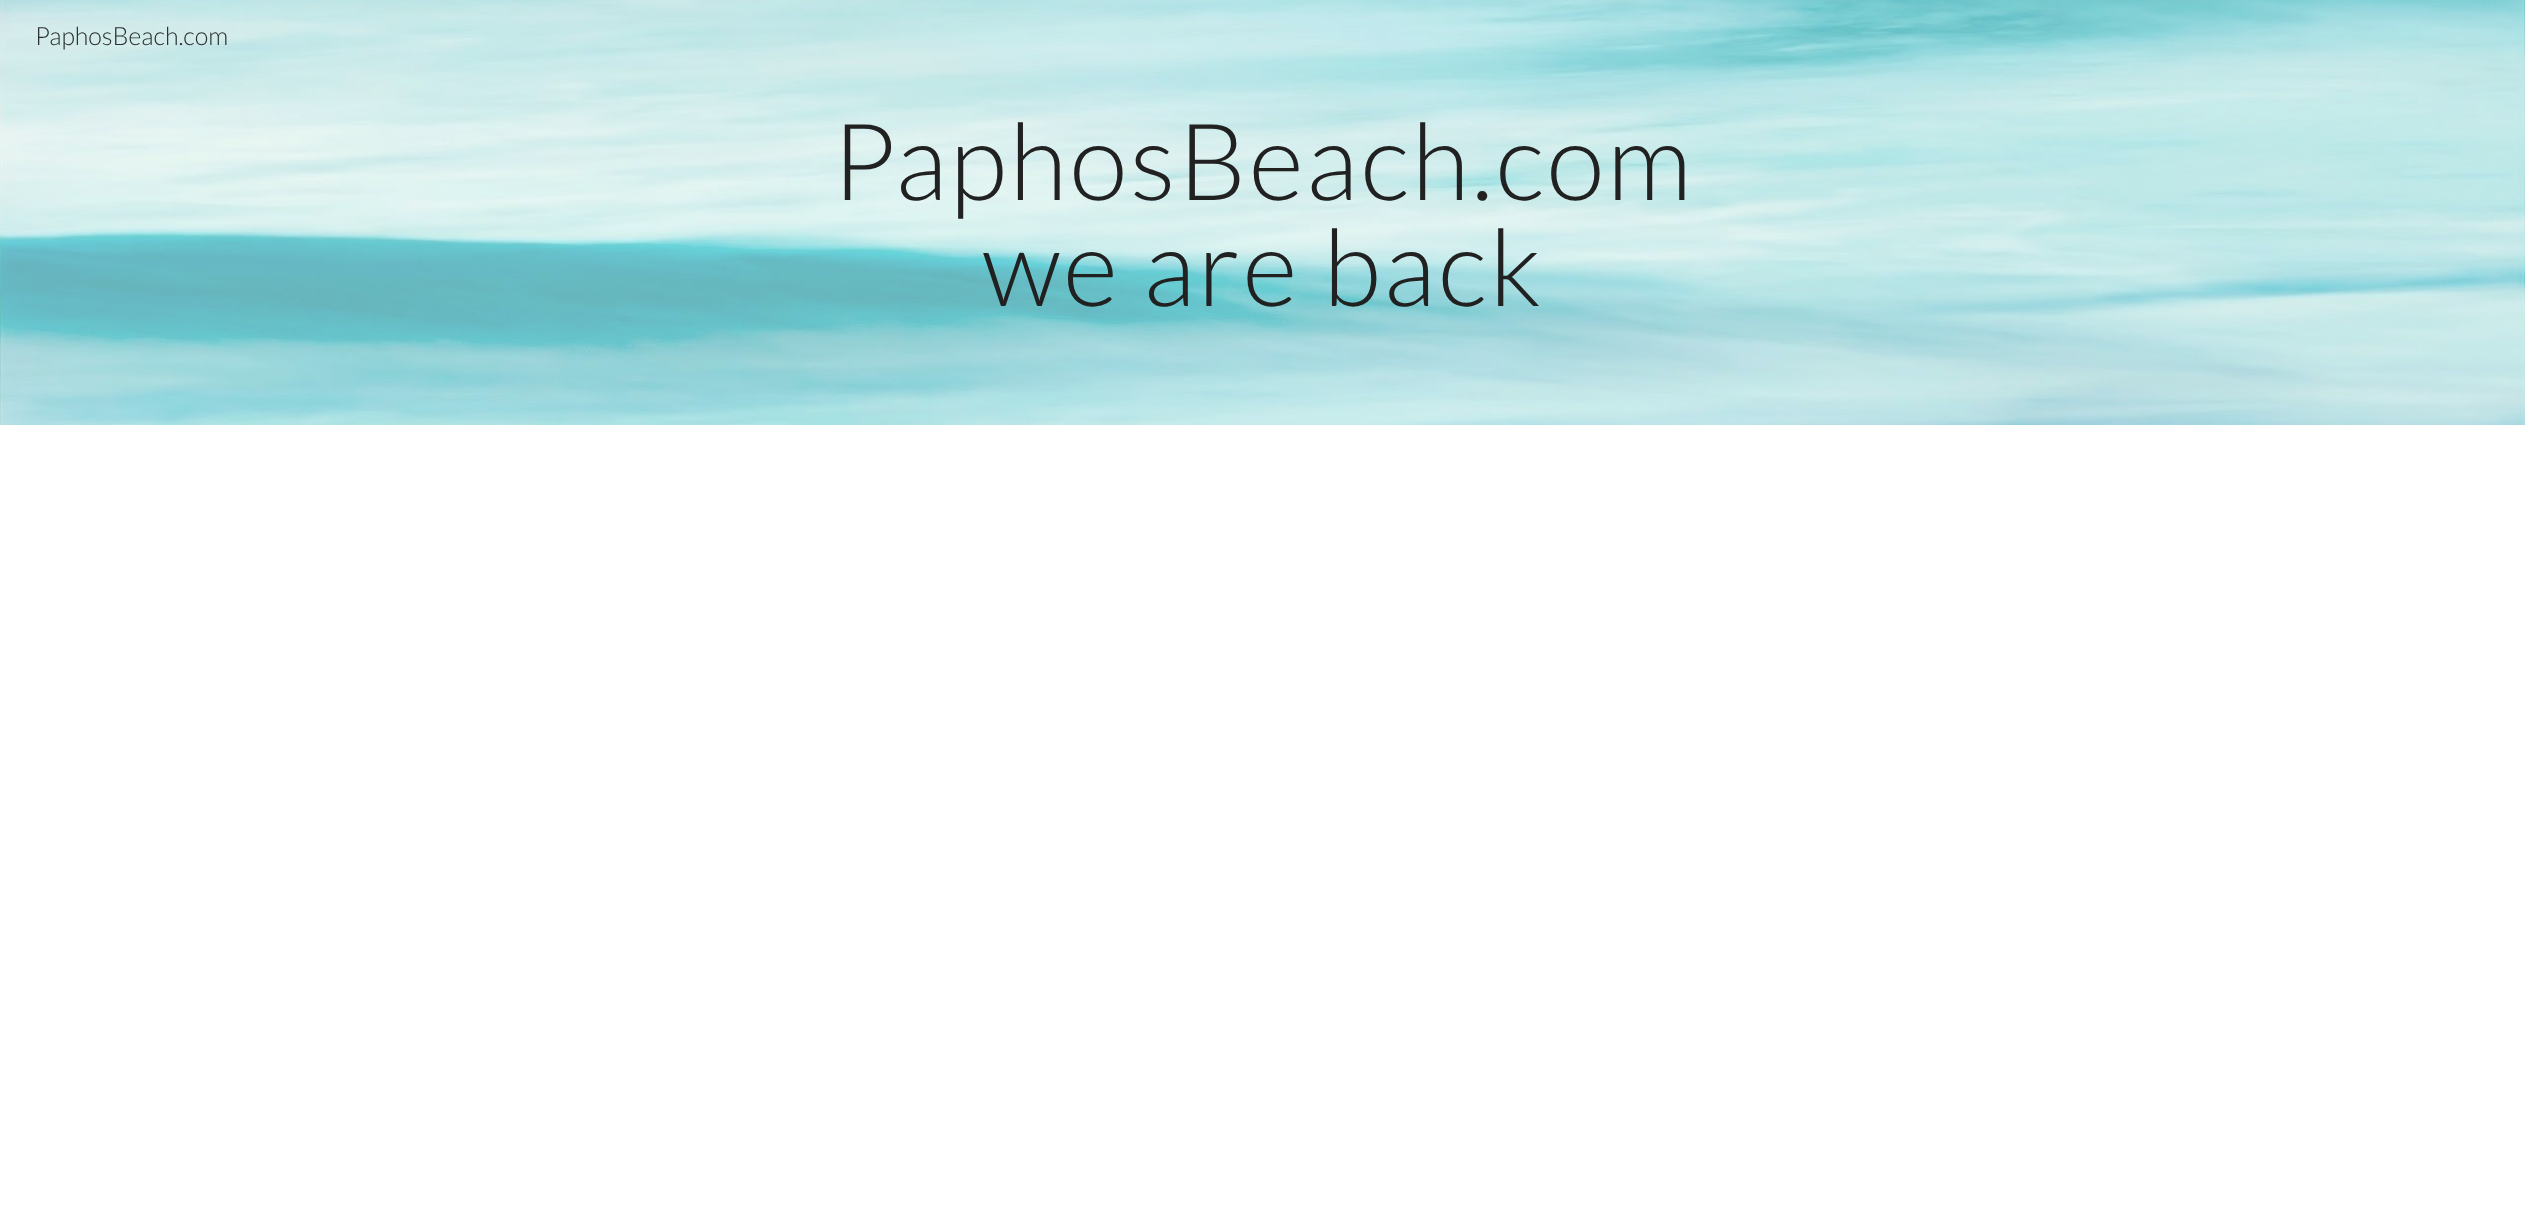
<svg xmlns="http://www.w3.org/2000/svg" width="2525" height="1206">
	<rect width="100%" height="100%" fill="#FFFFFF" />
	<image x="0" y="0" width="2525" height="425" href="assets/img1.png" />
	<text x="35" y="45" font-family="Lato" font-size="25" font-weight="300" fill="#2A2F2F">PaphosBeach.com</text>
	<g font-family="Lato" font-size="106.75" font-weight="300" letter-spacing="2.5" fill="#212121">
		<text x="832" y="200">PaphosBeach.com</text>
		<text x="982" y="306">we are back</text>
	</g>
</svg>
